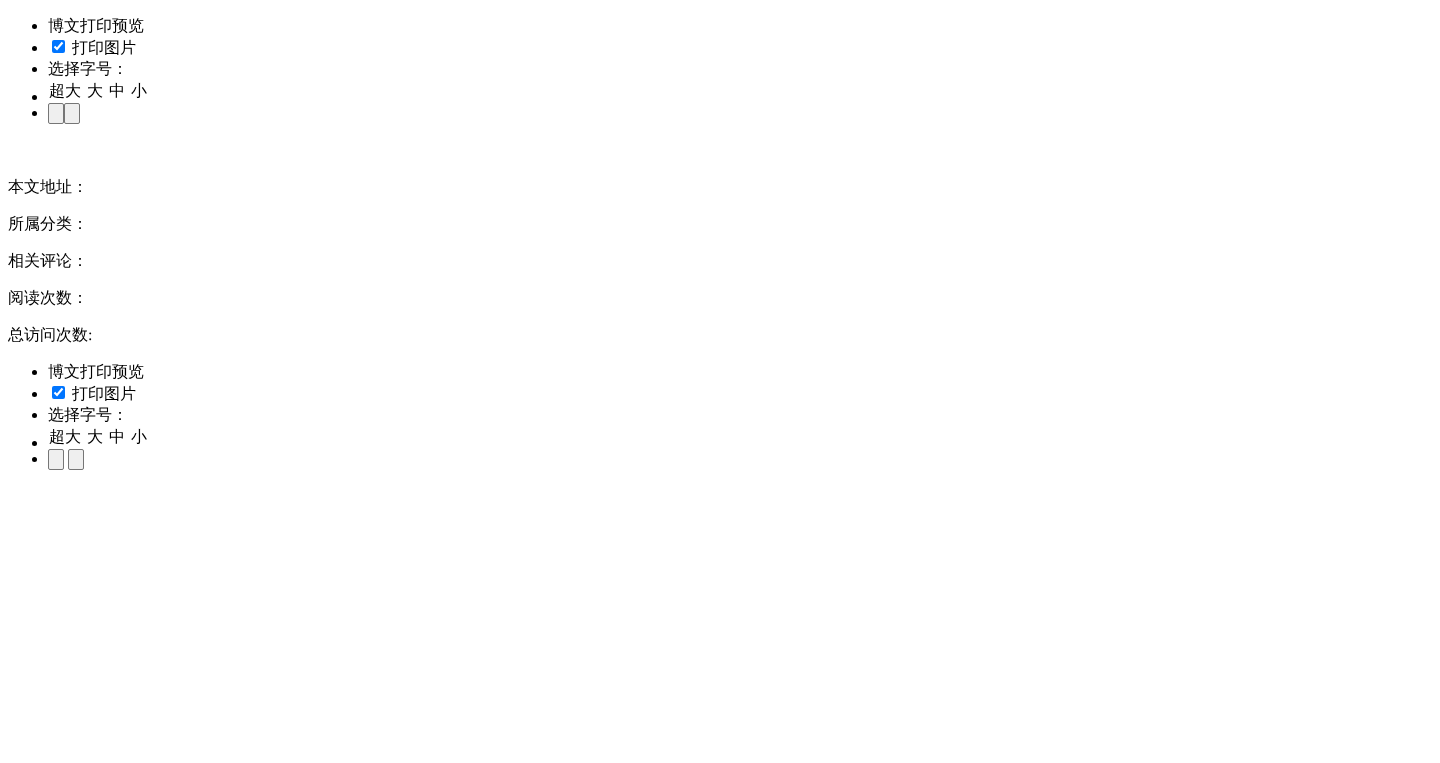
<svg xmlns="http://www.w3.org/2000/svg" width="1440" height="763">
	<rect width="100%" height="100%" fill="#FFFFFF" />
	<circle cx="34.5" cy="26.5" r="2.5" fill="#000000" />
	<text x="48" y="31" font-family="WenQuanYi Zen Hei" font-size="16" font-weight="500" fill="#000000">博文打印预览</text>
	<circle cx="34.5" cy="48.5" r="2.5" fill="#000000" />
	<rect x="52" y="40" width="13" height="13" rx="2" fill="#0075FF" />
	<path d="M54.5 46.5L57 49L62.5 42.5" fill="none" stroke="#FFFFFF" stroke-width="2.1" />
	<text x="72" y="53" font-family="WenQuanYi Zen Hei" font-size="16" font-weight="500" fill="#000000">打印图片</text>
	<circle cx="34.5" cy="69.5" r="2.5" fill="#000000" />
	<text x="48" y="74" font-family="WenQuanYi Zen Hei" font-size="16" font-weight="500" fill="#000000">选择字号：</text>
	<circle cx="34.5" cy="97.5" r="2.5" fill="#000000" />
	<g font-family="WenQuanYi Zen Hei" font-size="16" font-weight="500" fill="#000000">
		<text x="49" y="96">超大</text>
		<text x="87" y="96">大</text>
		<text x="109" y="96">中</text>
		<text x="131" y="96">小</text>
	</g>
	<circle cx="34.5" cy="113.5" r="2.5" fill="#000000" />
	<rect x="48.5" y="103.5" width="15" height="20" rx="1.5" fill="#EFEFEF" stroke="#767676" />
	<rect x="64.5" y="103.5" width="15" height="20" rx="1.5" fill="#EFEFEF" stroke="#767676" />
	<g font-family="WenQuanYi Zen Hei" font-size="16" font-weight="500" fill="#000000">
		<text x="8" y="192">本文地址：</text>
		<text x="8" y="229">所属分类：</text>
		<text x="8" y="266">相关评论：</text>
		<text x="8" y="303">阅读次数：</text>
		<text x="8" y="340">总访问次数</text>
	</g>
	<text x="88" y="340" font-family="Liberation Serif" font-size="16" fill="#000000">:</text>
	<circle cx="34.5" cy="372.5" r="2.5" fill="#000000" />
	<text x="48" y="377" font-family="WenQuanYi Zen Hei" font-size="16" font-weight="500" fill="#000000">博文打印预览</text>
	<circle cx="34.5" cy="394.5" r="2.5" fill="#000000" />
	<rect x="52" y="386" width="13" height="13" rx="2" fill="#0075FF" />
	<path d="M54.5 392.5L57 395L62.5 388.5" fill="none" stroke="#FFFFFF" stroke-width="2.1" />
	<text x="72" y="399" font-family="WenQuanYi Zen Hei" font-size="16" font-weight="500" fill="#000000">打印图片</text>
	<circle cx="34.5" cy="415.5" r="2.5" fill="#000000" />
	<text x="48" y="420" font-family="WenQuanYi Zen Hei" font-size="16" font-weight="500" fill="#000000">选择字号：</text>
	<circle cx="34.5" cy="443.5" r="2.5" fill="#000000" />
	<g font-family="WenQuanYi Zen Hei" font-size="16" font-weight="500" fill="#000000">
		<text x="49" y="442">超大</text>
		<text x="87" y="442">大</text>
		<text x="109" y="442">中</text>
		<text x="131" y="442">小</text>
	</g>
	<circle cx="34.5" cy="459.5" r="2.5" fill="#000000" />
	<rect x="48.5" y="449.5" width="15" height="20" rx="1.5" fill="#EFEFEF" stroke="#767676" />
	<rect x="68.5" y="449.5" width="15" height="20" rx="1.5" fill="#EFEFEF" stroke="#767676" />
</svg>
